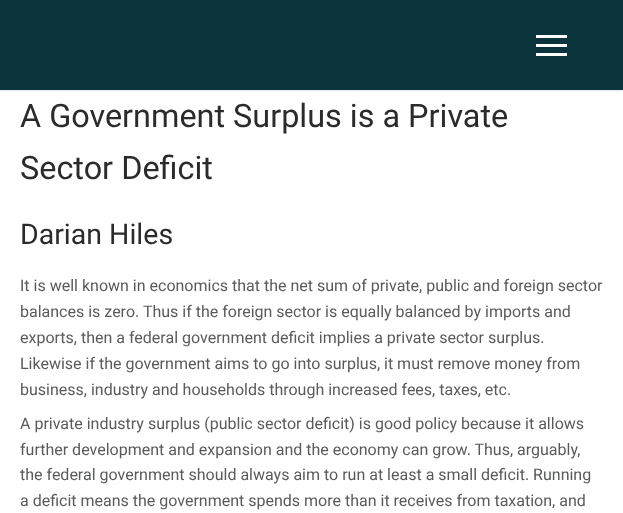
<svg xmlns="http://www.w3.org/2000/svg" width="623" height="513">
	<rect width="100%" height="100%" fill="#FFFFFF" />
	<rect x="0" y="1" width="623" height="90" fill="#E1E5EA" filter="blur(1px)" />
	<rect x="0" y="0" width="623" height="90" fill="#0C343D" />
	<rect x="536" y="44" width="31" height="3" fill="#FFFFFF" />
	<rect x="536" y="35" width="31" height="3" fill="#FFFFFF" />
	<rect x="536" y="53" width="31" height="3" fill="#FFFFFF" />
	<g font-family="Roboto" font-size="32.4" fill="#2B2B2B">
		<text x="20" y="127">A Government Surplus is a Private</text>
		<text x="20" y="179">Sector Deficit</text>
	</g>
	<text x="20" y="244" font-family="Roboto" font-size="28.5" fill="#2B2B2B">Darian Hiles</text>
	<g font-family="Roboto" font-size="16" fill="#595A5A">
		<text x="20" y="291">It is well known in economics that the net sum of private, public and foreign sector</text>
		<text x="20" y="317">balances is zero. Thus if the foreign sector is equally balanced by imports and</text>
		<text x="20" y="343">exports, then a federal government deficit implies a private sector surplus.</text>
		<text x="20" y="369">Likewise if the government aims to go into surplus, it must remove money from</text>
		<text x="20" y="395">business, industry and households through increased fees, taxes, etc.</text>
		<text x="20" y="429">A private industry surplus (public sector deficit) is good policy because it allows</text>
		<text x="20" y="455">further development and expansion and the economy can grow. Thus, arguably,</text>
		<text x="20" y="480">the federal government should always aim to run at least a small deficit. Running</text>
		<text x="20" y="506">a deficit means the government spends more than it receives from taxation, and</text>
	</g>
</svg>
